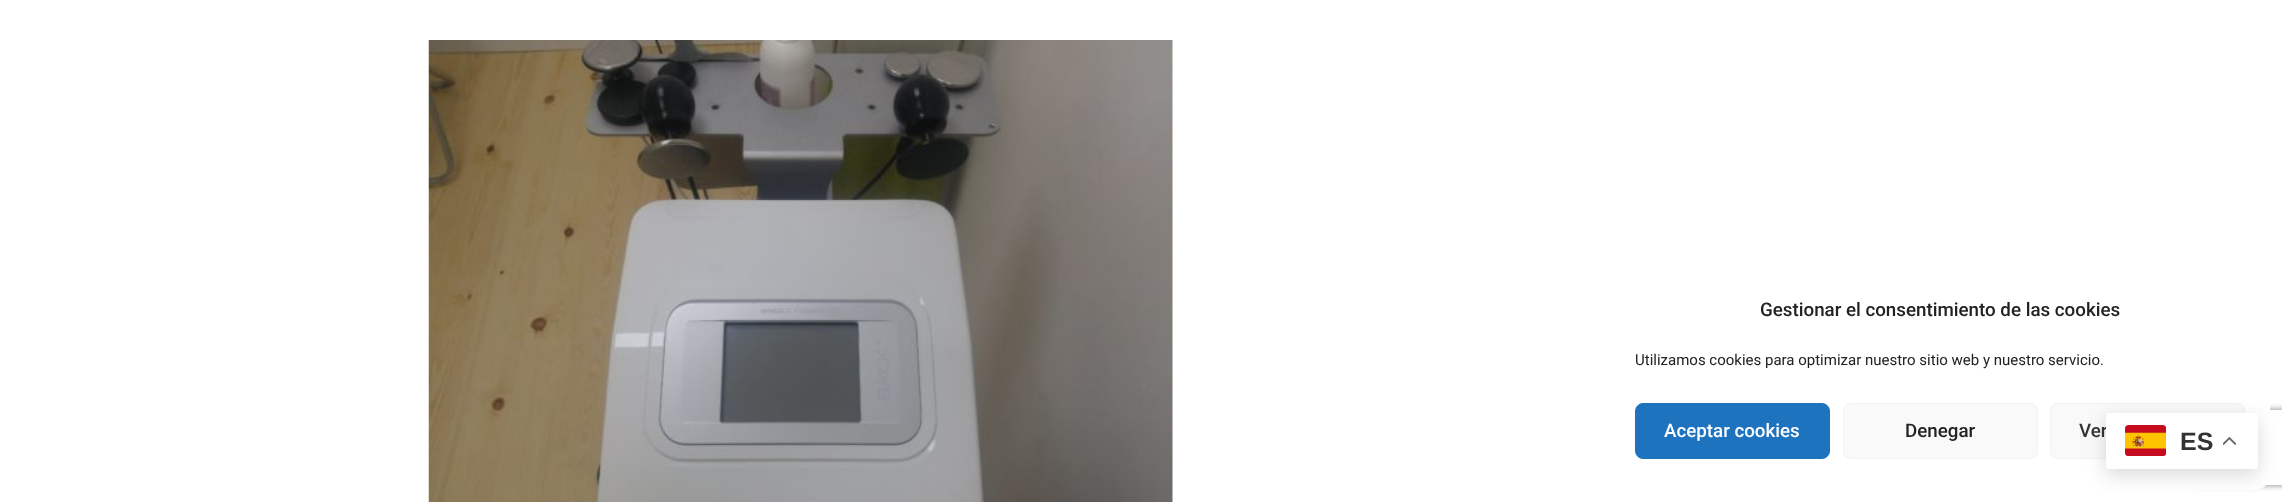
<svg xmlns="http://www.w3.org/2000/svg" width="2282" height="502">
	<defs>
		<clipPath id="clip1"><path d="M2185 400H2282V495H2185ZM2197.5 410H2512.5C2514 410 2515 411 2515 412.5V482.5C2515 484 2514 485 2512.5 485H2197.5C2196 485 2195 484 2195 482.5V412.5C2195 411 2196 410 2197.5 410Z" clip-rule="evenodd" /></clipPath>
	</defs>
	<rect width="100%" height="100%" fill="#FFFFFF" />
	<image x="428" y="40" width="745" height="462" href="assets/img1.png" />
	<g clip-path="url(#clip1)">
		<rect x="2195" y="410" width="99" height="75" rx="2.5" fill="#808080" filter="blur(3px)" />
	</g>
	<rect x="1610" y="278" width="660" height="212" rx="15" fill="#FFFFFF" />
	<text x="1760" y="316" font-family="Roboto" font-size="18.75" font-weight="500" fill="#222222">Gestionar el consentimiento de las cookies</text>
	<text x="1635" y="365" font-family="Roboto" font-size="15" fill="#222222">Utilizamos cookies para optimizar nuestro sitio web y nuestro servicio.</text>
	<rect x="1635.5" y="403.5" width="194" height="55" rx="7.5" fill="#1E73BE" stroke="#1E73BE" />
	<text x="1664" y="437" font-family="Roboto" font-size="18.75" font-weight="500" fill="#FFFFFF">Aceptar cookies</text>
	<rect x="1843.5" y="403.5" width="194" height="55" rx="7.5" fill="#F9F9F9" stroke="#F2F2F2" />
	<text x="1905" y="437" font-family="Roboto" font-size="18.75" font-weight="500" fill="#222222">Denegar</text>
	<rect x="2050.5" y="403.5" width="194" height="55" rx="7.5" fill="#F9F9F9" stroke="#F2F2F2" />
	<text x="2079" y="437" font-family="Roboto" font-size="18.75" font-weight="500" fill="#333333">Ver</text>
	<rect x="2106" y="419" width="152" height="56" rx="2.5" fill="#000000" fill-opacity="0.15" filter="blur(9.5px)" />
	<rect x="2106" y="413" width="152" height="56" rx="2.5" fill="#FFFFFF" />
	<image x="2125" y="425" width="41" height="31" href="assets/img2.png" />
	<text x="2180" y="450" font-family="Liberation Sans" font-size="25" font-weight="700" fill="#333333">ES</text>
	<image x="2223" y="437" width="13" height="8" href="assets/img3.png" />
</svg>
